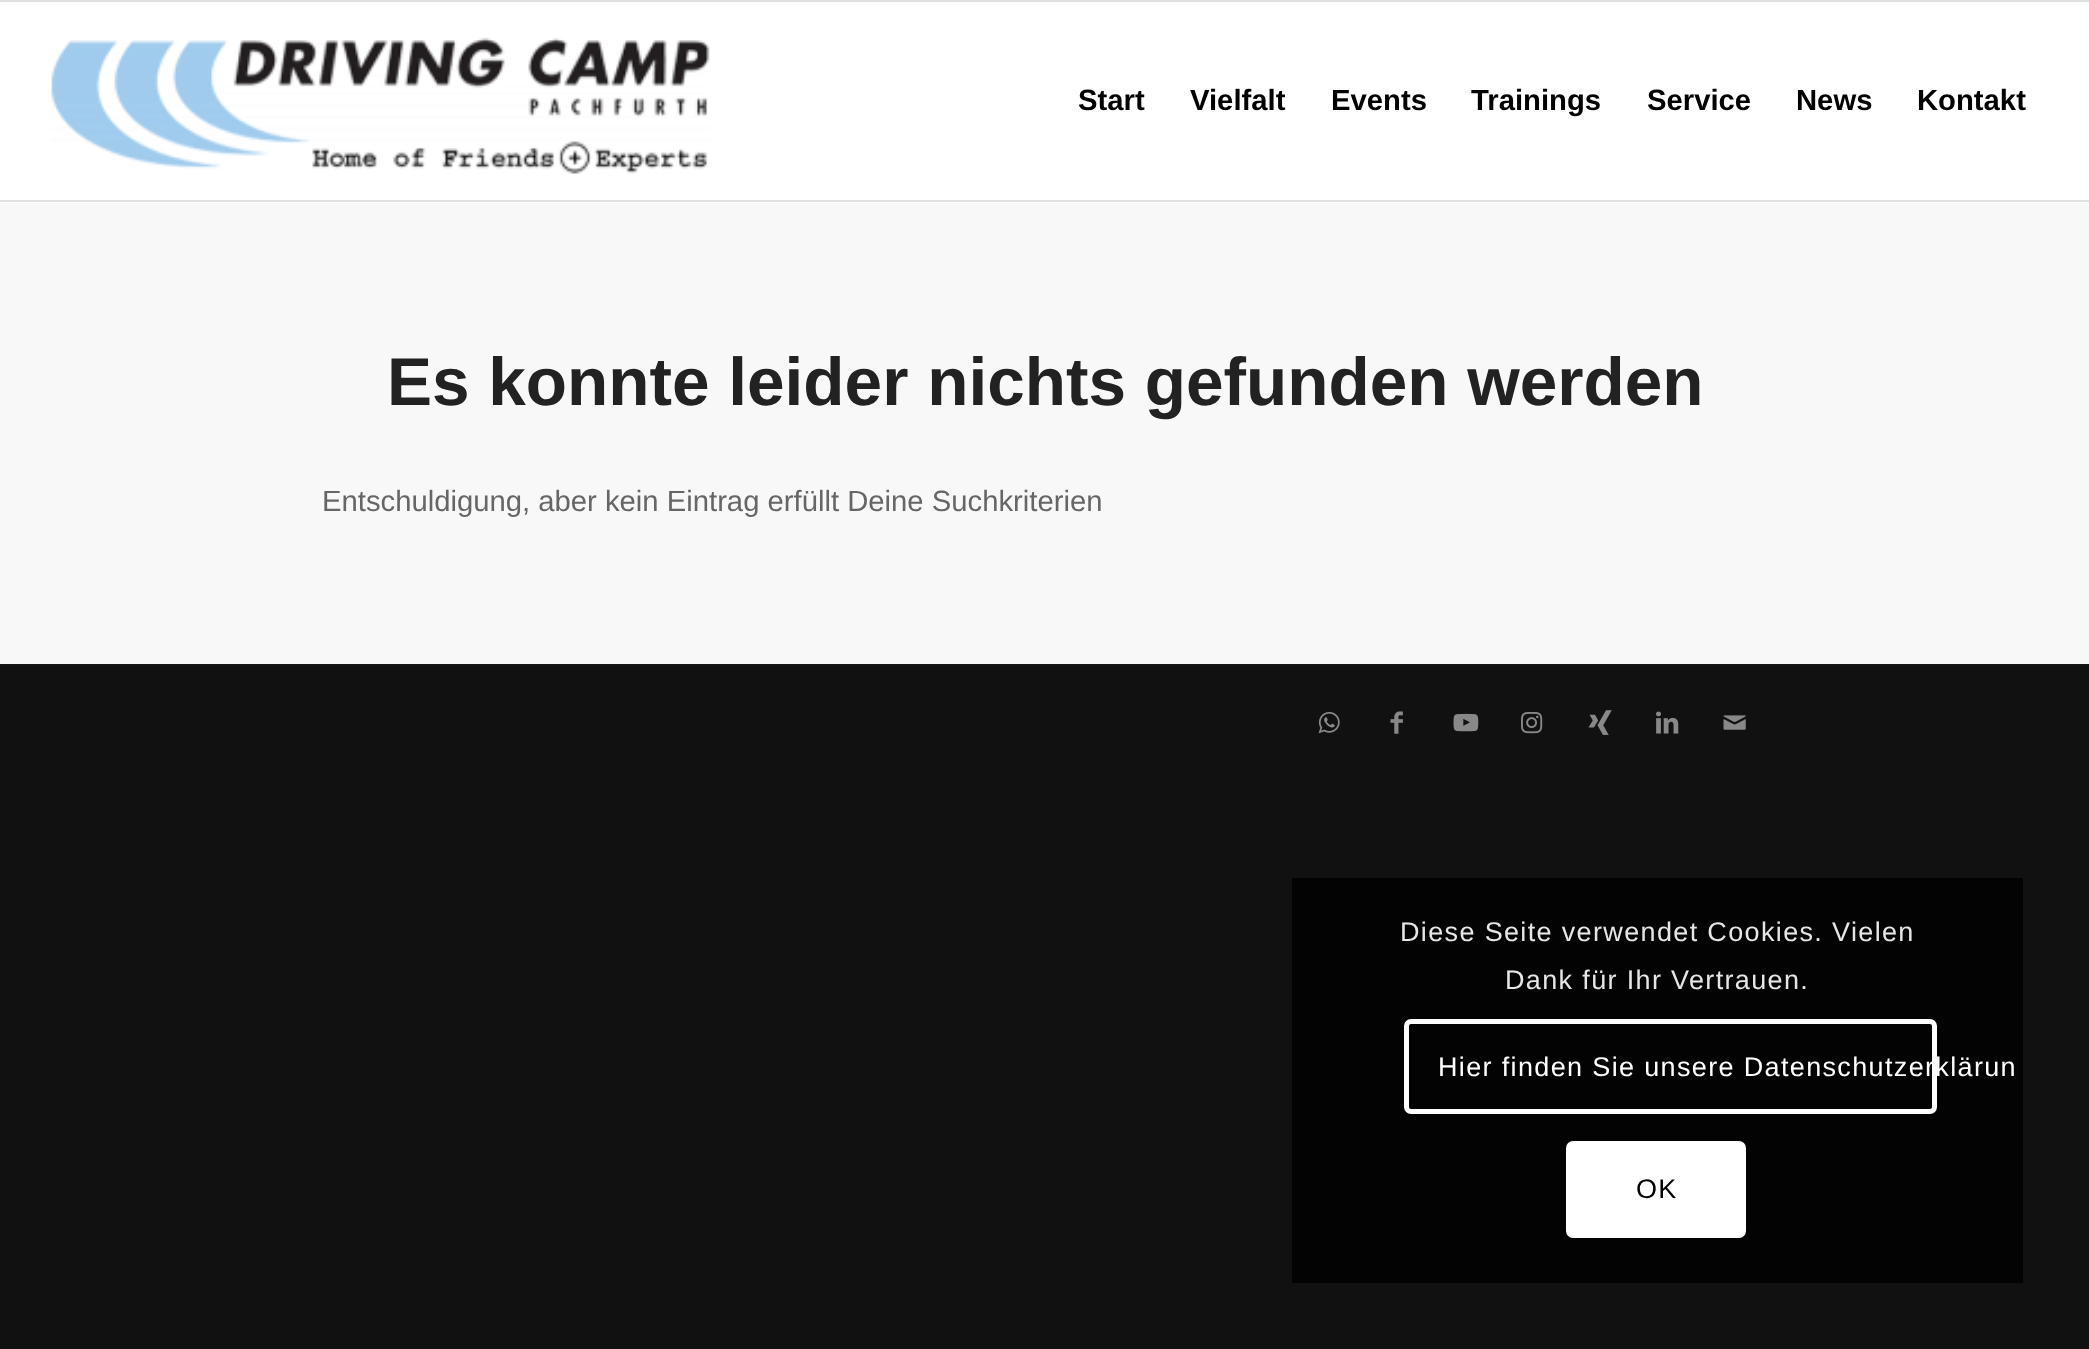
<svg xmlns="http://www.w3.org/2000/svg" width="2089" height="1349">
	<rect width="100%" height="100%" fill="#111111" />
	<rect x="0" y="2" width="2089" height="201" fill="#FFFFFF" />
	<rect x="0" y="0" width="2089" height="2" fill="#E1E1E1" />
	<rect x="0" y="200" width="2089" height="2" fill="#E1E1E1" />
	<image x="51" y="37" width="659" height="137" href="assets/img1.png" />
	<g font-family="Liberation Sans" font-size="29.25" font-weight="700" fill="#000000">
		<text x="1078" y="110">Start</text>
		<text x="1190" y="110">Vielfalt</text>
		<text x="1331" y="110">Events</text>
		<text x="1471" y="110">Trainings</text>
		<text x="1647" y="110">Service</text>
		<text x="1796" y="110">News</text>
		<text x="1917" y="110">Kontakt</text>
	</g>
	<rect x="0" y="203" width="2089" height="461" fill="#F8F8F8" />
	<text x="387" y="405" font-family="Arimo" font-size="67.5" font-weight="700" fill="#222222">Es konnte leider nichts gefunden werden</text>
	<text x="322" y="511" font-family="Liberation Sans" font-size="29.25" fill="#666666">Entschuldigung, aber kein Eintrag erfüllt Deine Suchkriterien</text>
	<rect x="0" y="664" width="2089" height="2" fill="#161616" />
	<image x="1318" y="711" width="22" height="23" href="assets/img2.png" />
	<image x="1390" y="711" width="13" height="23" href="assets/img3.png" />
	<image x="1453" y="713" width="26" height="19" href="assets/img4.png" />
	<image x="1521" y="712" width="22" height="22" href="assets/img5.png" />
	<image x="1588" y="710" width="24" height="25" href="assets/img6.png" />
	<image x="1656" y="711" width="23" height="23" href="assets/img7.png" />
	<image x="1723" y="715" width="23" height="15" href="assets/img8.png" />
	<rect x="1292" y="878" width="731" height="405" fill="#030303" />
	<g font-family="Liberation Sans" font-size="27" letter-spacing="1.35" fill="#E6E6E6">
		<text x="1400" y="941">Diese Seite verwendet Cookies. Vielen</text>
		<text x="1505" y="989">Dank für Ihr Vertrauen.</text>
	</g>
	<rect x="1406.5" y="1021.5" width="528" height="90" rx="4.5" fill="none" stroke="#FFFFFF" stroke-width="5" />
	<text x="1438" y="1076" font-family="Liberation Sans" font-size="27" letter-spacing="1.35" fill="#FFFFFF">Hier finden Sie unsere Datenschutzerklärun</text>
	<rect x="1566" y="1141" width="180" height="97" rx="7" fill="#FFFFFF" />
	<text x="1636" y="1198" font-family="Liberation Sans" font-size="27" letter-spacing="1.35" fill="#000000">OK</text>
</svg>
